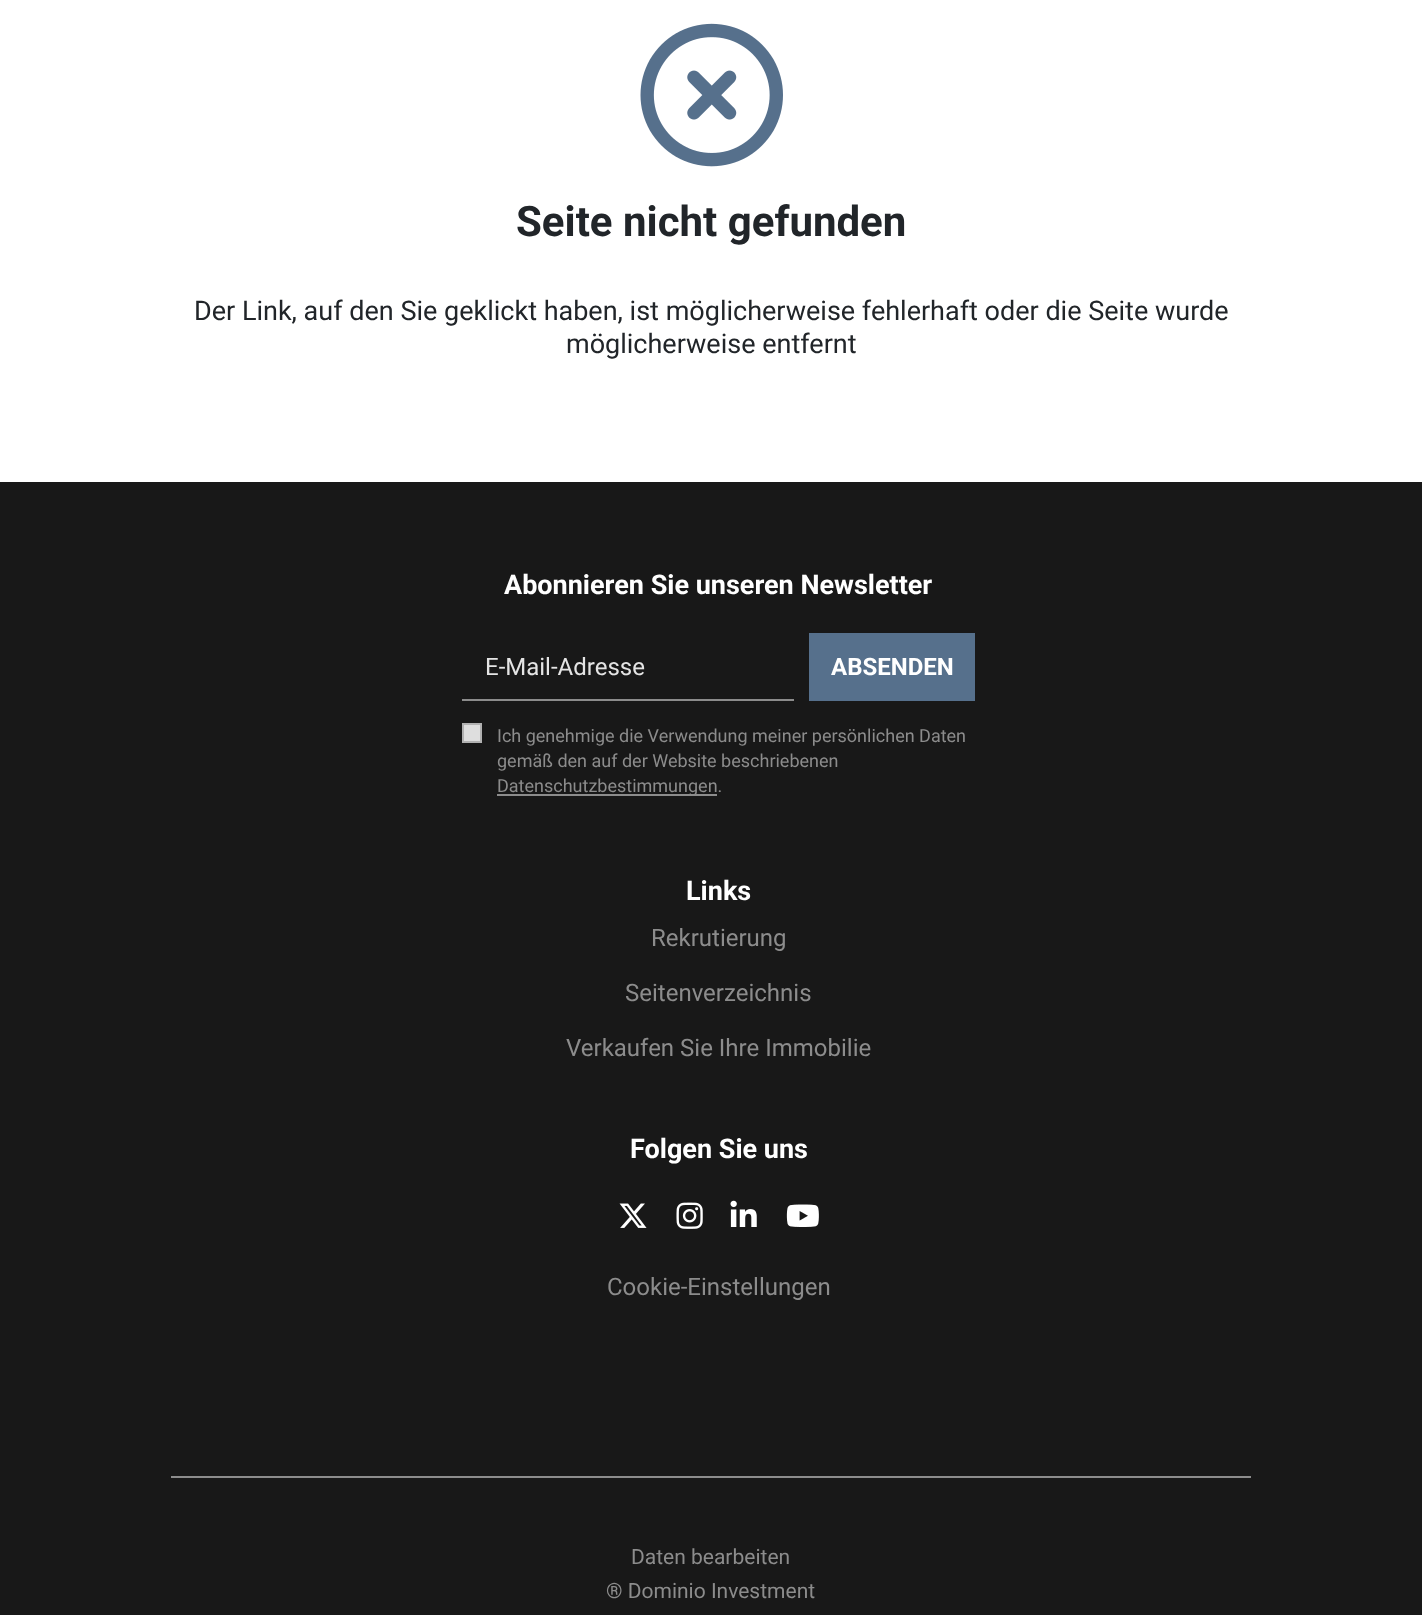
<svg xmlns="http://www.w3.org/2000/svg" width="1422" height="1615">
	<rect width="100%" height="100%" fill="#FFFFFF" />
	<image x="640" y="23" width="143" height="144" href="assets/img1.png" />
	<text x="516" y="236" font-family="Roboto" font-size="42" font-weight="700" fill="#212529">Seite nicht gefunden</text>
	<g font-family="Roboto" font-size="27" fill="#212529">
		<text x="194" y="320">Der Link, auf den Sie geklickt haben, ist möglicherweise fehlerhaft oder die Seite wurde</text>
		<text x="566" y="353">möglicherweise entfernt</text>
	</g>
	<rect x="0" y="482" width="1422" height="1133" fill="#181818" />
	<rect x="171" y="1476" width="1080" height="2" fill="#8C8C8C" />
	<text x="504" y="594" font-family="Roboto" font-size="27" font-weight="700" fill="#FFFFFF">Abonnieren Sie unseren Newsletter</text>
	<rect x="462" y="699" width="332" height="2" fill="#8C8C8C" />
	<text x="485" y="675" font-family="Roboto" font-size="24" fill="#E4E4E4">E-Mail-Adresse</text>
	<rect x="809" y="633" width="166" height="68" fill="#56708C" />
	<text x="831" y="675" font-family="Roboto" font-size="24" font-weight="700" fill="#FFFFFF">ABSENDEN</text>
	<rect x="463" y="724" width="18" height="18" fill="#DEDEDE" stroke="#B1B1B1" stroke-width="2" />
	<g font-family="Roboto" font-size="18" fill="#8C8C8C">
		<text x="497" y="742">Ich genehmige die Verwendung meiner persönlichen Daten</text>
		<text x="497" y="767">gemäß den auf der Website beschriebenen</text>
	</g>
	<rect x="497" y="794" width="220" height="2" fill="#8C8C8C" />
	<text x="497" y="792" font-family="Roboto" font-size="18" fill="#8C8C8C">Datenschutzbestimmungen.</text>
	<text x="686" y="900" font-family="Roboto" font-size="27" font-weight="700" fill="#FFFFFF">Links</text>
	<g font-family="Roboto" font-size="24" fill="#8C8C8C">
		<text x="651" y="946">Rekrutierung</text>
		<text x="625" y="1001">Seitenverzeichnis</text>
		<text x="566" y="1056">Verkaufen Sie Ihre Immobilie</text>
	</g>
	<text x="630" y="1158" font-family="Roboto" font-size="27" font-weight="700" fill="#FFFFFF">Folgen Sie uns</text>
	<image x="619" y="1203" width="28" height="25" href="assets/img2.png" />
	<image x="676" y="1202" width="27" height="27" href="assets/img3.png" />
	<image x="730" y="1200" width="27" height="27" href="assets/img4.png" />
	<image x="786" y="1204" width="33" height="23" href="assets/img5.png" />
	<text x="607" y="1295" font-family="Roboto" font-size="24" fill="#8C8C8C">Cookie-Einstellungen</text>
	<g font-family="Roboto" font-size="21" fill="#8C8C8C">
		<text x="631" y="1564">Daten bearbeiten</text>
		<text x="606" y="1598">® Dominio Investment</text>
	</g>
</svg>
